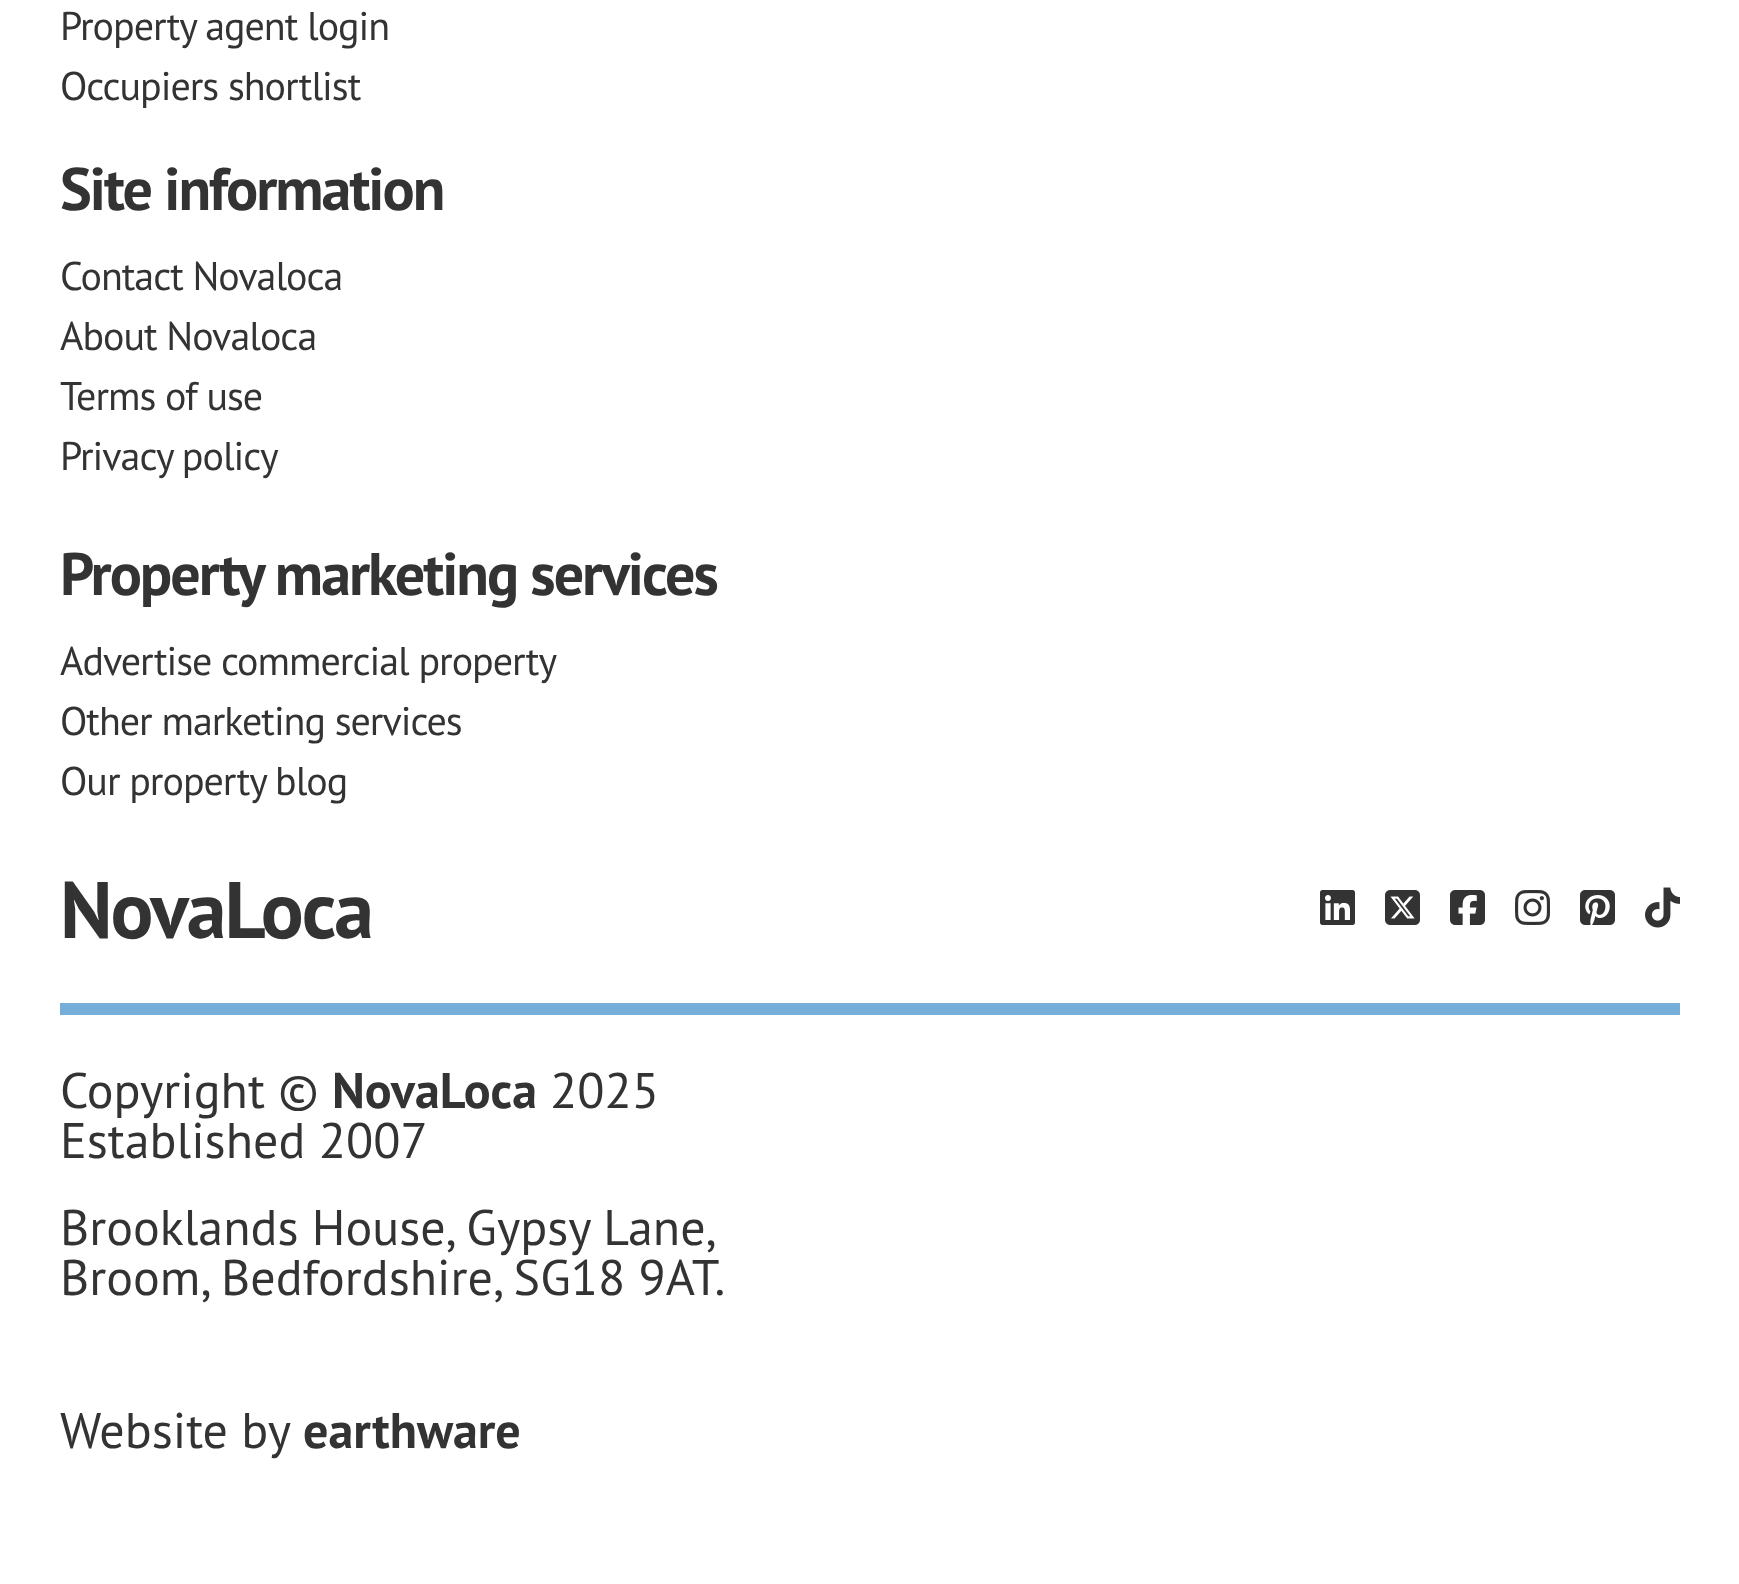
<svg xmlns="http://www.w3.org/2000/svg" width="1739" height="1584">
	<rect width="100%" height="100%" fill="#FFFFFF" />
	<g font-family="PT Sans" font-size="40" letter-spacing="-1" fill="#333333">
		<text x="60" y="40">Property agent login</text>
		<text x="60" y="100">Occupiers shortlist</text>
	</g>
	<text x="60" y="210" font-family="PT Sans" font-size="60" font-weight="700" letter-spacing="-2" fill="#333333">Site information</text>
	<g font-family="PT Sans" font-size="40" letter-spacing="-1" fill="#333333">
		<text x="60" y="290">Contact Novaloca</text>
		<text x="60" y="350">About Novaloca</text>
		<text x="60" y="410">Terms of use</text>
		<text x="60" y="470">Privacy policy</text>
	</g>
	<text x="60" y="595" font-family="PT Sans" font-size="60" font-weight="700" letter-spacing="-2" fill="#333333">Property marketing services</text>
	<g font-family="PT Sans" font-size="40" letter-spacing="-1" fill="#333333">
		<text x="60" y="675">Advertise commercial property</text>
		<text x="60" y="735">Other marketing services</text>
		<text x="60" y="795">Our property blog</text>
	</g>
	<rect x="60" y="1003" width="1620" height="12" fill="#75AED9" />
	<text x="60" y="938" font-family="PT Sans" font-size="80" font-weight="700" letter-spacing="-2" fill="#333333">NovaLoca</text>
	<image x="1320" y="890" width="35" height="35" href="assets/img1.png" />
	<image x="1385" y="890" width="35" height="35" href="assets/img2.png" />
	<image x="1450" y="890" width="35" height="35" href="assets/img3.png" />
	<image x="1515" y="890" width="35" height="35" href="assets/img4.png" />
	<image x="1580" y="890" width="35" height="35" href="assets/img5.png" />
	<image x="1645" y="887" width="35" height="41" href="assets/img6.png" />
	<text x="60" y="1108" font-family="PT Sans" font-size="50" fill="#333333">Copyright ©</text>
	<text x="332" y="1108" font-family="PT Sans" font-size="50" font-weight="700" fill="#333333">NovaLoca</text>
	<g font-family="PT Sans" font-size="50" fill="#333333">
		<text x="550" y="1108">2025</text>
		<text x="60" y="1158">Established 2007</text>
		<text x="60" y="1245">Brooklands House, Gypsy Lane,</text>
		<text x="60" y="1295">Broom, Bedfordshire, SG18 9AT.</text>
		<text x="60" y="1448">Website by</text>
	</g>
	<text x="303" y="1448" font-family="PT Sans" font-size="50" font-weight="700" fill="#333333">earthware</text>
</svg>
